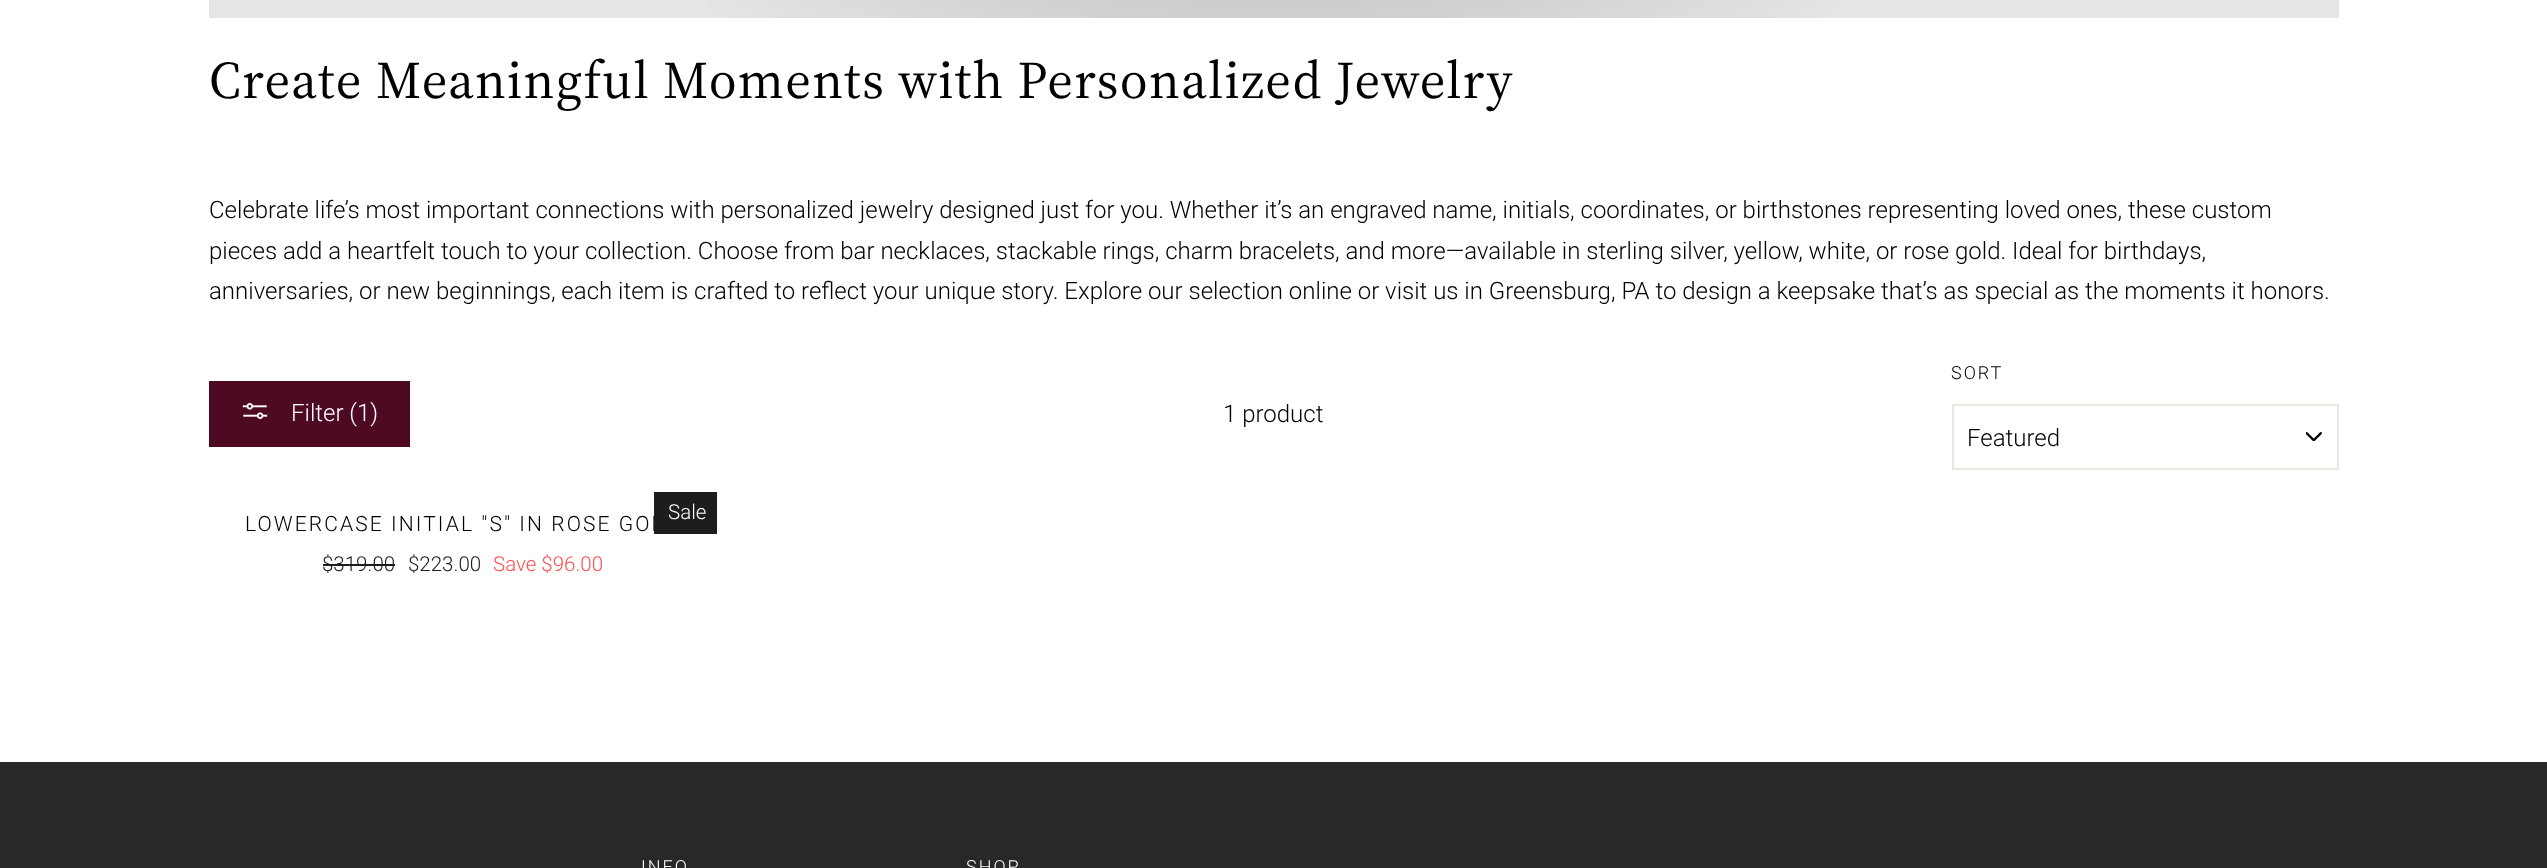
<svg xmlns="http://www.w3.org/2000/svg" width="2547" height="868">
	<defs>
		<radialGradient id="g1" gradientUnits="userSpaceOnUse" cx="0" cy="0" r="1" gradientTransform="matrix(1122 0 0 380 1274 -100)"><stop offset="0" stop-color="#B8B8B8" /><stop offset="0.6" stop-color="#E6E6E6" /></radialGradient>
	</defs>
	<rect width="100%" height="100%" fill="#FFFFFF" />
	<rect x="209" y="0" width="2130" height="18" fill="#E6E6E6" />
	<rect x="707" y="0" width="1134" height="18" fill="url(#g1)" />
	<text x="209" y="98" font-family="'Source Serif 4'" font-size="52.5" letter-spacing="1.3" fill="#000000">Create Meaningful Moments with Personalized Jewelry</text>
	<g font-family="Roboto" font-size="24" font-weight="300" fill="#000000">
		<text x="209" y="218">Celebrate life’s most important connections with personalized jewelry designed just for you. Whether it’s an engraved name, initials, coordinates, or birthstones representing loved ones, these custom</text>
		<text x="209" y="259">pieces add a heartfelt touch to your collection. Choose from bar necklaces, stackable rings, charm bracelets, and more—available in sterling silver, yellow, white, or rose gold. Ideal for birthdays,</text>
		<text x="209" y="299">anniversaries, or new beginnings, each item is crafted to reflect your unique story. Explore our selection online or visit us in Greensburg, PA to design a keepsake that’s as special as the moments it honors.</text>
	</g>
	<rect x="209" y="381" width="201" height="66" fill="#4F0A23" />
	<image x="242" y="403" width="26" height="16" href="assets/img1.png" />
	<text x="291" y="421" font-family="Roboto" font-size="24" font-weight="300" fill="#FFFFFF">Filter (1)</text>
	<text x="1223" y="422" font-family="Roboto" font-size="24" font-weight="300" fill="#000000">1 product</text>
	<text x="1951" y="379" font-family="Roboto" font-size="18" font-weight="300" letter-spacing="2" fill="#000000">SORT</text>
	<image x="2306" y="432" width="16" height="9" href="assets/img2.png" />
	<rect x="1953" y="405" width="385" height="64" fill="none" stroke="#E8E8E1" stroke-width="2" />
	<text x="1967" y="446" font-family="Roboto" font-size="24" font-weight="300" fill="#000000">Featured</text>
	<text x="245" y="531" font-family="Roboto" font-size="21" font-weight="300" letter-spacing="2.1" fill="#000000">LOWERCASE INITIAL "S" IN ROSE GOL</text>
	<rect x="654" y="492" width="63" height="42" fill="#1C1D1D" />
	<text x="668" y="519" font-family="Roboto" font-size="20.5" font-weight="300" fill="#FFFFFF">Sale</text>
	<text x="322" y="571" font-family="Roboto" font-size="20.5" font-weight="300" fill="#1C1D1D">$319.00</text>
	<rect x="323" y="564" width="72" height="2" fill="#1C1D1D" />
	<text x="408" y="571" font-family="Roboto" font-size="20.5" font-weight="300" fill="#1C1D1D">$223.00</text>
	<text x="493" y="571" font-family="Roboto" font-size="20.5" font-weight="300" fill="#FF4E4E">Save $96.00</text>
	<rect x="0" y="762" width="2547" height="106" fill="#292828" />
	<g font-family="Roboto" font-size="18" font-weight="300" letter-spacing="2" fill="#FFFFFF">
		<text x="641" y="873">INFO</text>
		<text x="966" y="873">SHOP</text>
	</g>
</svg>
